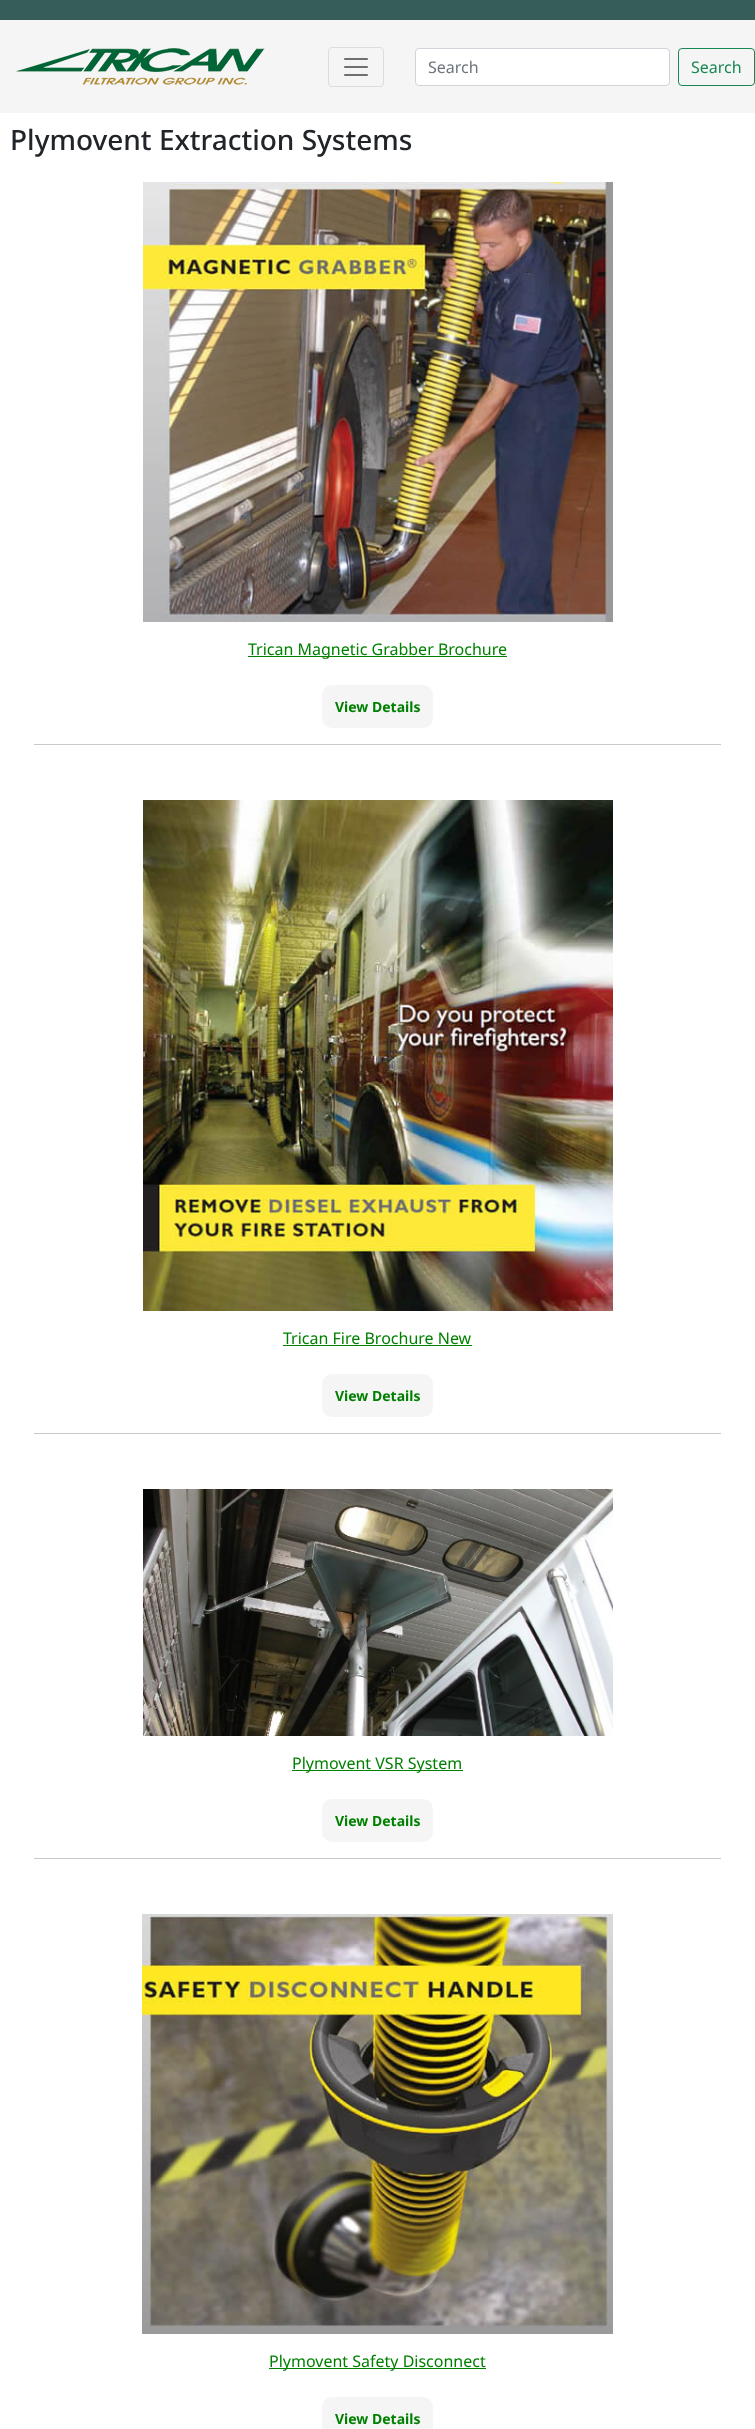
<svg xmlns="http://www.w3.org/2000/svg" width="755" height="2429">
	<rect width="100%" height="100%" fill="#FFFFFF" />
	<rect x="0" y="0" width="755" height="20" fill="#365D57" />
	<rect x="0" y="20" width="755" height="93" fill="#F5F5F5" />
	<image x="15" y="48" width="250" height="37" href="assets/img1.png" />
	<rect x="328.5" y="47.5" width="55" height="39" rx="3.5" fill="none" stroke="#DDDDDD" />
	<image x="344" y="58" width="24" height="18" href="assets/img2.png" />
	<rect x="415.5" y="48.5" width="254" height="37" rx="3.5" fill="#FFFFFF" stroke="#CED4DA" />
	<text x="428" y="73" font-family="Noto Sans" font-size="16" fill="#6C757D">Search</text>
	<rect x="678.5" y="48.5" width="76" height="37" rx="3.5" fill="none" stroke="#198754" />
	<text x="691" y="73" font-family="Noto Sans" font-size="16" fill="#198754">Search</text>
	<text x="10" y="150" font-family="Noto Sans" font-size="28" font-weight="500" fill="#212529">Plymovent Extraction Systems</text>
	<image x="143" y="182" width="470" height="440" href="assets/img3.png" />
	<rect x="248" y="656" width="259" height="1" fill="#008000" />
	<text x="248" y="655" font-family="Noto Sans" font-size="16" fill="#008000">Trican Magnetic Grabber Brochure</text>
	<rect x="322" y="685" width="111" height="43" rx="10" fill="#F5F5F5" />
	<text x="335" y="712" font-family="Noto Sans" font-size="14" font-weight="700" fill="#008000">View Details</text>
	<rect x="34" y="744" width="687" height="1" fill="#C8C9CA" />
	<image x="143" y="800" width="470" height="511" href="assets/img4.png" />
	<text x="283" y="1344" font-family="Noto Sans" font-size="16" fill="#008000">Trican Fire Brochure New</text>
	<rect x="283" y="1345" width="189" height="1" fill="#008000" />
	<rect x="322" y="1374" width="111" height="43" rx="10" fill="#F5F5F5" />
	<text x="335" y="1401" font-family="Noto Sans" font-size="14" font-weight="700" fill="#008000">View Details</text>
	<rect x="34" y="1433" width="687" height="1" fill="#C8C9CA" />
	<image x="143" y="1489" width="470" height="247" href="assets/img5.png" />
	<rect x="292" y="1770" width="171" height="1" fill="#008000" />
	<text x="292" y="1769" font-family="Noto Sans" font-size="16" fill="#008000">Plymovent VSR System</text>
	<rect x="322" y="1799" width="111" height="43" rx="10" fill="#F5F5F5" />
	<text x="335" y="1826" font-family="Noto Sans" font-size="14" font-weight="700" fill="#008000">View Details</text>
	<rect x="34" y="1858" width="687" height="1" fill="#C8C9CA" />
	<image x="142" y="1914" width="471" height="420" href="assets/img6.png" />
	<rect x="269" y="2368" width="217" height="1" fill="#008000" />
	<text x="269" y="2367" font-family="Noto Sans" font-size="16" fill="#008000">Plymovent Safety Disconnect</text>
	<rect x="322" y="2397" width="111" height="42" rx="10" fill="#F5F5F5" />
	<text x="335" y="2424" font-family="Noto Sans" font-size="14" font-weight="700" fill="#008000">View Details</text>
</svg>
